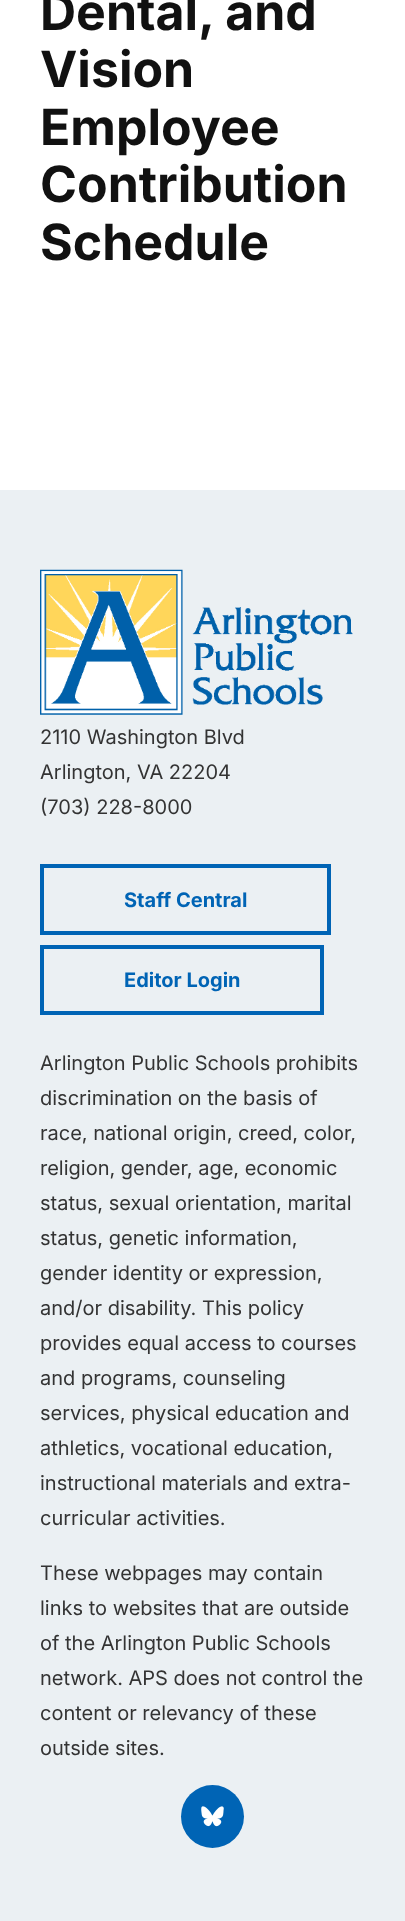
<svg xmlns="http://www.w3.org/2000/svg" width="405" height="1921">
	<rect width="100%" height="100%" fill="#FFFFFF" />
	<g font-family="Inter" font-size="50" font-weight="700" fill="#111111">
		<text x="40" y="30">Dental, and</text>
		<text x="40" y="87">Vision</text>
		<text x="40" y="145">Employee</text>
		<text x="40" y="202">Contribution</text>
		<text x="40" y="260">Schedule</text>
	</g>
	<rect x="0" y="490" width="405" height="1431" fill="#EBF0F3" />
	<image x="40" y="569" width="313" height="146" href="assets/img1.png" />
	<g font-family="Inter" font-size="20" fill="#333333">
		<text x="40" y="744">2110 Washington Blvd</text>
		<text x="40" y="779">Arlington, VA 22204</text>
		<text x="40" y="814">(703) 228-8000</text>
	</g>
	<rect x="42" y="866" width="287" height="67" fill="none" stroke="#0064B5" stroke-width="4" />
	<text x="124" y="907" font-family="Inter" font-size="20" font-weight="700" fill="#0064B5">Staff Central</text>
	<rect x="42" y="947" width="280" height="66" fill="none" stroke="#0064B5" stroke-width="4" />
	<text x="124" y="987" font-family="Inter" font-size="20" font-weight="700" fill="#0064B5">Editor Login</text>
	<g font-family="Inter" font-size="20" fill="#333333">
		<text x="40" y="1070">Arlington Public Schools prohibits</text>
		<text x="40" y="1105">discrimination on the basis of</text>
		<text x="40" y="1140">race, national origin, creed, color,</text>
		<text x="40" y="1175">religion, gender, age, economic</text>
		<text x="40" y="1210">status, sexual orientation, marital</text>
		<text x="40" y="1245">status, genetic information,</text>
		<text x="40" y="1280">gender identity or expression,</text>
		<text x="40" y="1315">and/or disability. This policy</text>
		<text x="40" y="1350">provides equal access to courses</text>
		<text x="40" y="1385">and programs, counseling</text>
		<text x="40" y="1420">services, physical education and</text>
		<text x="40" y="1455">athletics, vocational education,</text>
		<text x="40" y="1490">instructional materials and extra-</text>
		<text x="40" y="1525">curricular activities.</text>
		<text x="40" y="1580">These webpages may contain</text>
		<text x="40" y="1615">links to websites that are outside</text>
		<text x="40" y="1650">of the Arlington Public Schools</text>
		<text x="40" y="1685">network. APS does not control the</text>
		<text x="40" y="1720">content or relevancy of these</text>
		<text x="40" y="1755">outside sites.</text>
	</g>
	<circle cx="212.5" cy="1816.5" r="31.5" fill="#0064B5" />
	<image x="201" y="1806" width="23" height="21" href="assets/img2.png" />
</svg>
